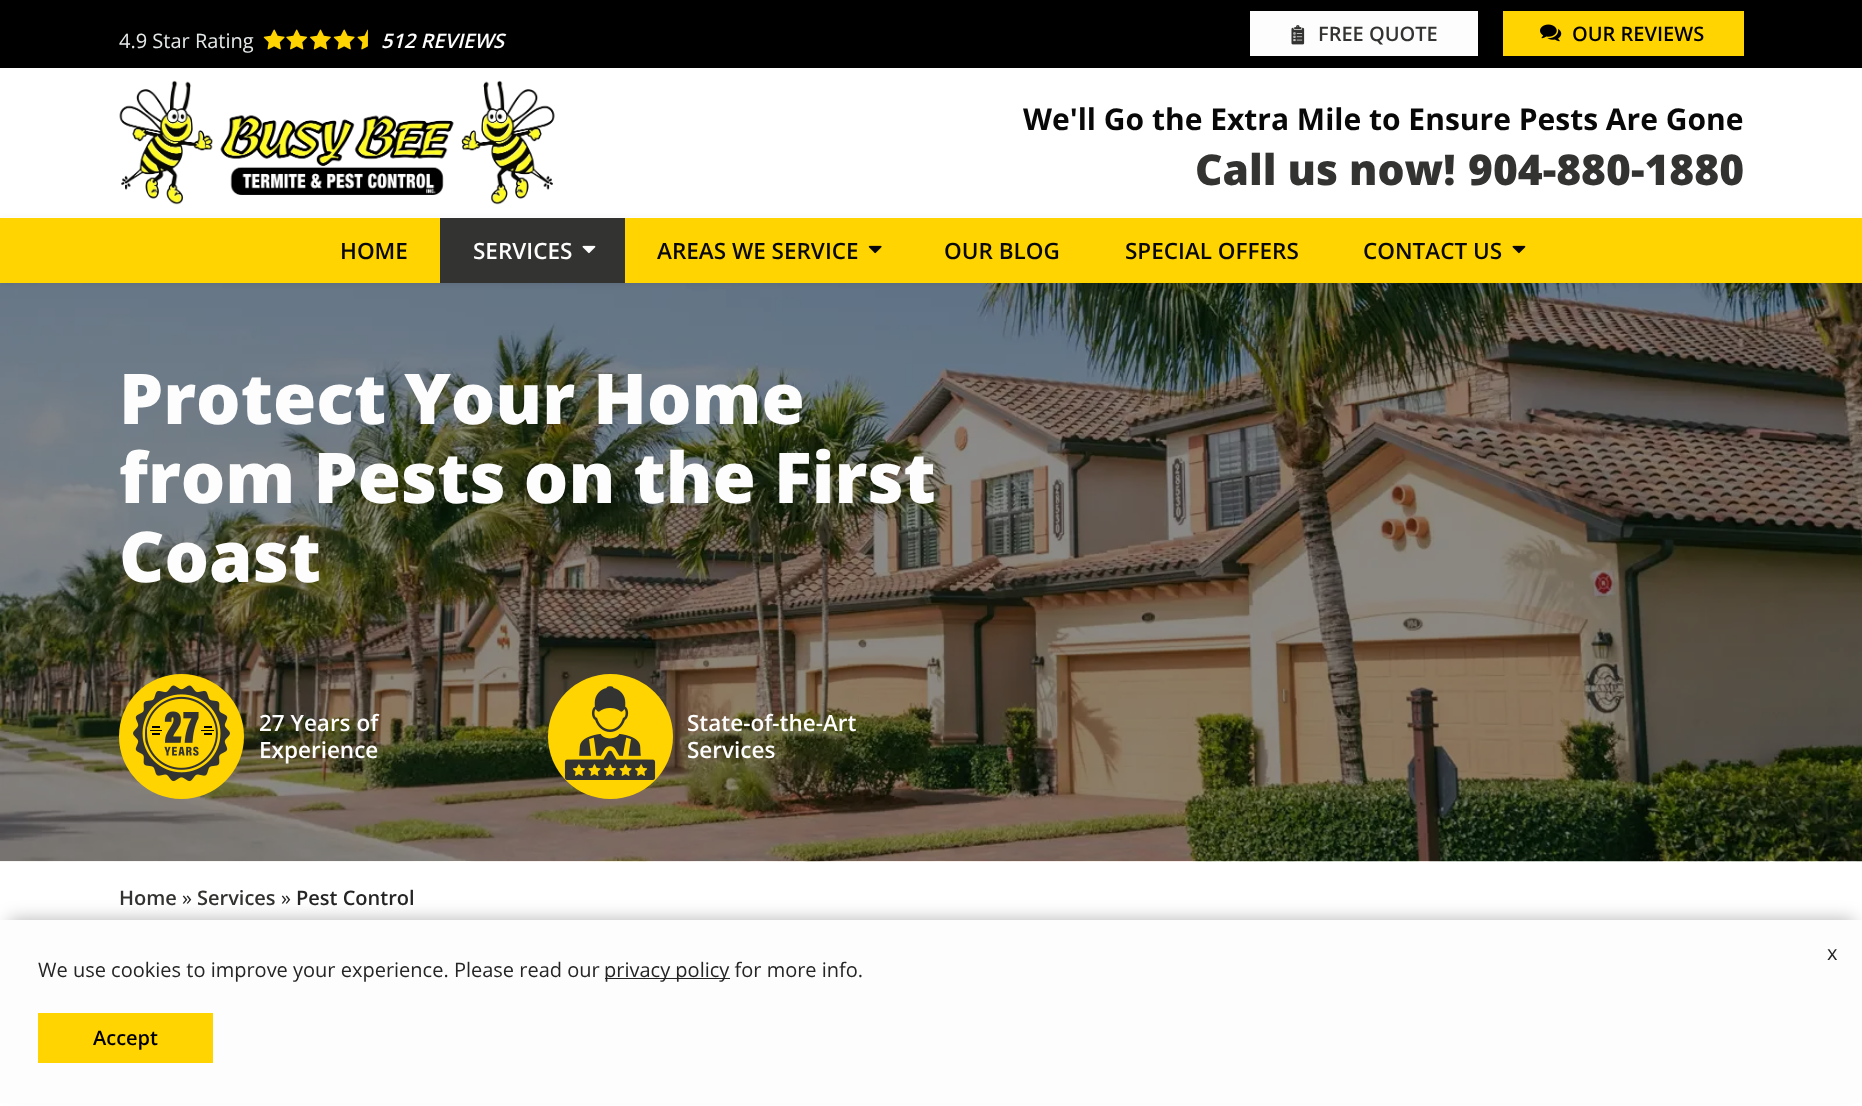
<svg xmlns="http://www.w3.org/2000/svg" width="1862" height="1106">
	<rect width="100%" height="100%" fill="#FFFFFF" />
	<rect x="0" y="0" width="1862" height="68" fill="#000000" />
	<text x="119" y="48" font-family="Open Sans" font-size="20" fill="#E5E9EA">4.9 Star Rating</text>
	<image x="263" y="29" width="22" height="21" href="assets/img1.png" />
	<image x="286" y="29" width="22" height="21" href="assets/img2.png" />
	<image x="310" y="29" width="21" height="21" href="assets/img3.png" />
	<image x="333" y="29" width="22" height="21" href="assets/img1.png" />
	<image x="357" y="29" width="11" height="21" href="assets/img4.png" />
	<text x="381" y="48" font-family="Open Sans" font-size="20" font-weight="600" font-style="italic" fill="#FDFDFD">512 REVIEWS</text>
	<rect x="1250" y="11" width="228" height="45" fill="#FDFDFD" />
	<image x="1291" y="25" width="14" height="20" href="assets/img5.png" />
	<text x="1318" y="41" font-family="Open Sans" font-size="20" font-weight="600" fill="#333331">FREE QUOTE</text>
	<rect x="1503" y="11" width="241" height="45" fill="#FFD400" />
	<image x="1540" y="24" width="22" height="18" href="assets/img6.png" />
	<text x="1572" y="41" font-family="Open Sans" font-size="20" font-weight="600" fill="#000000">OUR REVIEWS</text>
	<image x="0" y="283" width="1862" height="579" href="assets/img11.png" />
	<rect x="0" y="219" width="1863" height="65" fill="#000000" fill-opacity="0.08" filter="blur(3px)" />
	<rect x="2" y="217" width="1859" height="1" fill="#FDFDFD" />
	<image x="119" y="80" width="436" height="125" href="assets/img7.png" />
	<text x="1023" y="130" font-family="Open Sans" font-size="30" font-weight="700" fill="#080808">We'll Go the Extra Mile to Ensure Pests Are Gone</text>
	<g font-family="Open Sans" font-size="42.5" font-weight="800" fill="#333331">
		<text x="1195" y="185">Call us now!</text>
		<text x="1468" y="185">904-880-1880</text>
	</g>
	<rect x="0" y="218" width="1862" height="65" fill="#FFD400" />
	<text x="340" y="259" font-family="Open Sans" font-size="22.5" font-weight="600" fill="#080808">HOME</text>
	<rect x="440" y="218" width="185" height="65" fill="#333331" />
	<text x="473" y="259" font-family="Open Sans" font-size="22.5" font-weight="600" fill="#FDFDFD">SERVICES</text>
	<image x="582" y="245" width="14" height="9" href="assets/img8.png" />
	<text x="657" y="259" font-family="Open Sans" font-size="22.5" font-weight="600" fill="#080808">AREAS WE SERVICE</text>
	<image x="868" y="245" width="14" height="9" href="assets/img9.png" />
	<g font-family="Open Sans" font-size="22.5" font-weight="600" fill="#080808">
		<text x="944" y="259">OUR BLOG</text>
		<text x="1125" y="259">SPECIAL OFFERS</text>
		<text x="1363" y="259">CONTACT US</text>
	</g>
	<image x="1512" y="245" width="14" height="9" href="assets/img10.png" />
	<g font-family="Open Sans" font-size="70" font-weight="800" fill="#FDFDFD">
		<text x="119" y="424">Protect Your Home</text>
		<text x="119" y="503">from Pests on the First</text>
		<text x="119" y="582">Coast</text>
	</g>
	<circle cx="181.5" cy="736.5" r="62.5" fill="#FFD400" />
	<image x="133" y="685" width="97" height="97" href="assets/img12.png" />
	<g font-family="Open Sans" font-size="22.5" font-weight="600" fill="#FDFDFD">
		<text x="259" y="731">27 Years of</text>
		<text x="259" y="758">Experience</text>
	</g>
	<circle cx="610.5" cy="736.5" r="62.5" fill="#FFD400" />
	<image x="564" y="686" width="92" height="94" href="assets/img13.png" />
	<g font-family="Open Sans" font-size="22.5" font-weight="600" fill="#FDFDFD">
		<text x="687" y="731">State-of-the-Art</text>
		<text x="687" y="758">Services</text>
	</g>
	<text x="119" y="905" font-family="Open Sans" font-size="20" font-weight="600" fill="#333331">Home</text>
	<text x="182" y="905" font-family="Open Sans" font-size="20" fill="#252525">»</text>
	<text x="197" y="905" font-family="Open Sans" font-size="20" font-weight="600" fill="#333331">Services</text>
	<text x="281" y="905" font-family="Open Sans" font-size="20" fill="#252525">»</text>
	<text x="296" y="905" font-family="Open Sans" font-size="20" font-weight="600" fill="#252525">Pest Control</text>
	<rect x="9" y="920" width="1845" height="169" fill="#000000" fill-opacity="0.3" filter="blur(9px)" />
	<rect x="0" y="920" width="1862" height="183" fill="#FDFDFD" />
	<g font-family="Open Sans" font-size="20" fill="#252525">
		<text x="1827" y="960">x</text>
		<text x="38" y="977">We use cookies to improve your experience. Please read our</text>
	</g>
	<rect x="605" y="978" width="125" height="1" fill="#252525" />
	<text x="604" y="977" font-family="Open Sans" font-size="20" fill="#252525">privacy policy for more info.</text>
	<rect x="38" y="1013" width="175" height="50" fill="#FFD400" />
	<text x="93" y="1045" font-family="Open Sans" font-size="20" font-weight="600" fill="#000000">Accept</text>
</svg>
